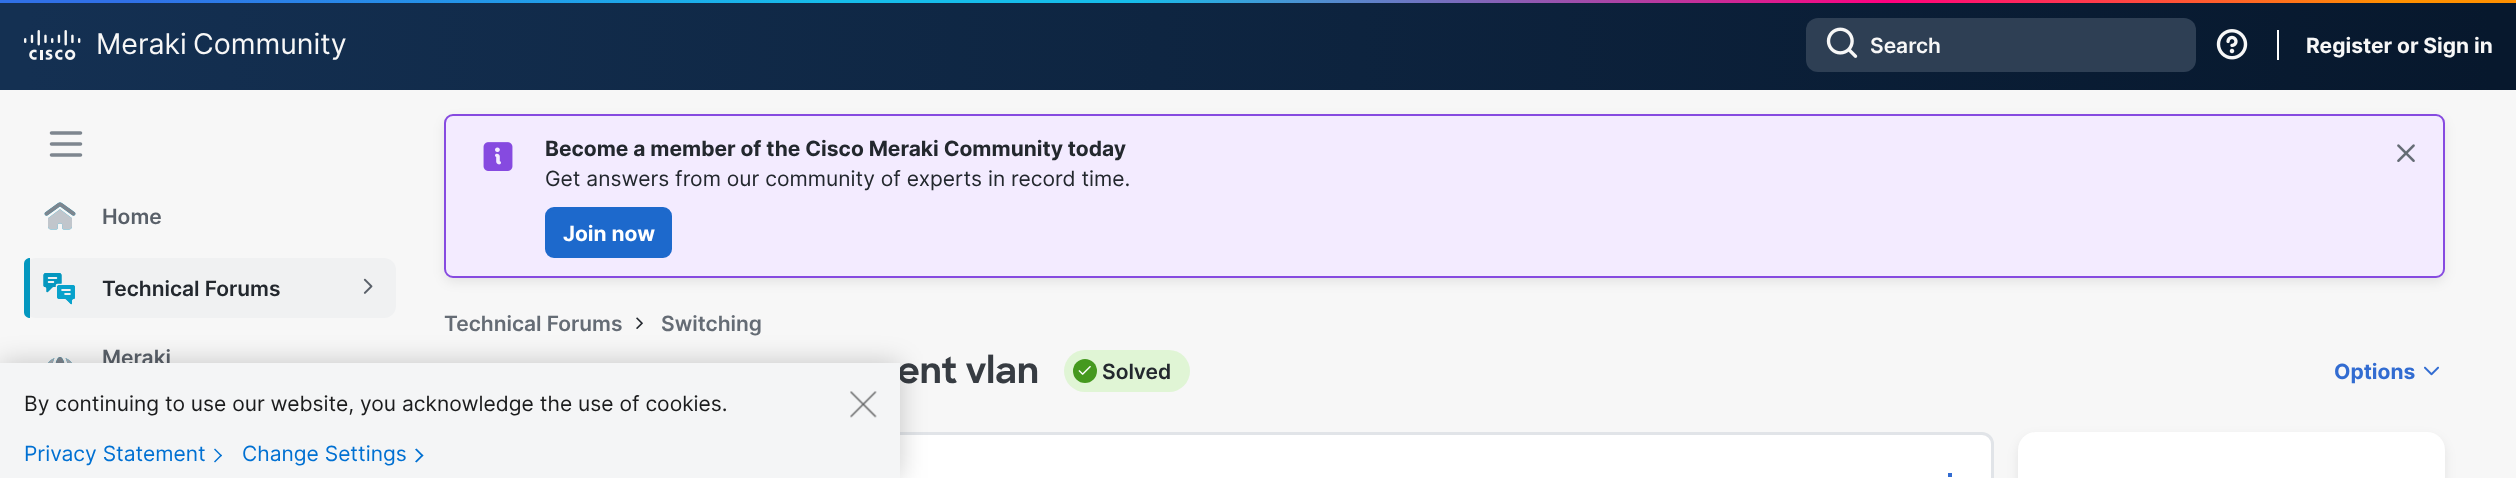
<svg xmlns="http://www.w3.org/2000/svg" width="2516" height="478">
	<defs>
		<linearGradient id="g1" gradientUnits="userSpaceOnUse" x1="0" y1="45" x2="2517" y2="45"><stop offset="0.01" stop-color="#143052" /><stop offset="0.99" stop-color="#07182D" /></linearGradient>
		<linearGradient id="g2" gradientUnits="userSpaceOnUse" x1="0" y1="1.5" x2="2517" y2="1.5"><stop offset="0.05" stop-color="#3070E7" /><stop offset="0.33" stop-color="#16BDEB" /><stop offset="0.45" stop-color="#16BDEB" /><stop offset="0.75" stop-color="#FF007F" /><stop offset="0.95" stop-color="#FF9000" /></linearGradient>
	</defs>
	<rect width="100%" height="100%" fill="#F7F7F7" />
	<rect x="0" y="3" width="2516" height="87" fill="url(#g1)" />
	<rect x="0" y="0" width="2516" height="3" fill="url(#g2)" />
	<image x="24" y="30" width="57" height="30" href="assets/img1.png" />
	<g font-family="Inter" font-size="28.5" fill="#F7F7F7">
		<text x="96" y="54">Meraki</text>
		<text x="193" y="54">Community</text>
	</g>
	<rect x="1806" y="18" width="390" height="54" rx="12" fill="#2E3F54" />
	<image x="1826" y="27" width="32" height="31" href="assets/img2.png" />
	<text x="1870" y="53" font-family="Inter" font-size="21" font-weight="600" fill="#F7F7F7">Search</text>
	<image x="2216" y="29" width="32" height="31" href="assets/img3.png" />
	<rect x="2277" y="30" width="2" height="30" fill="#FFFFFF" />
	<text x="2306" y="53" font-family="Inter" font-size="21" font-weight="700" fill="#F7F7F7">Register or Sign in</text>
	<path d="M51.5 133H80.5M51.5 144H80.5M51.5 155H80.5" fill="none" stroke="#7E868F" stroke-width="3.6" stroke-linecap="round" />
	<image x="44" y="202" width="32" height="28" href="assets/img4.png" />
	<image x="44" y="202" width="32" height="28" href="assets/img5.png" />
	<text x="102" y="224" font-family="Inter" font-size="21" font-weight="600" fill="#596069">Home</text>
	<rect x="24" y="258" width="372" height="60" rx="12" fill="#F0F1F2" />
	<path d="M30 258V318C26.5 318 24 315.5 24 312V264C24 260.5 26.5 258 30 258Z" fill="#0497BF" />
	<image x="43" y="273" width="32" height="32" href="assets/img6.png" />
	<image x="43" y="273" width="32" height="32" href="assets/img7.png" />
	<text x="102" y="296" font-family="Inter" font-size="21" font-weight="600" fill="#23282E">Technical Forums</text>
	<image x="363" y="278" width="10" height="16" href="assets/img8.png" />
	<image x="48" y="357" width="24" height="6" href="assets/img9.png" />
	<image x="48" y="357" width="24" height="6" href="assets/img10.png" />
	<text x="102" y="365" font-family="Inter" font-size="21" font-weight="600" fill="#596069">Meraki</text>
	<rect x="444" y="119" width="2001" height="163" rx="9" fill="#000000" fill-opacity="0.08" filter="blur(6px)" />
	<rect x="445" y="115" width="1999" height="162" rx="8" fill="#F3EBFF" stroke="#864AE0" stroke-width="2" />
	<image x="483" y="142" width="30" height="29" href="assets/img11.png" />
	<text x="545" y="156" font-family="Inter" font-size="21" font-weight="700" fill="#23282E">Become a member of the Cisco Meraki Community today</text>
	<text x="545" y="186" font-family="Inter" font-size="21" fill="#23282E">Get answers from our community of experts in record time.</text>
	<rect x="546.5" y="208.5" width="124" height="48" rx="7.5" fill="#1D69CC" stroke="#1D69CC" stroke-width="3" />
	<text x="563" y="241" font-family="Inter" font-size="21" font-weight="700" fill="#FFFFFF">Join now</text>
	<image x="2397" y="144" width="18" height="18" href="assets/img12.png" />
	<text x="444" y="331" font-family="Inter" font-size="21" font-weight="600" fill="#656C75">Technical Forums</text>
	<image x="636" y="317" width="7" height="12" href="assets/img13.png" />
	<text x="661" y="331" font-family="Inter" font-size="21" font-weight="600" fill="#656C75">Switching</text>
	<text x="897" y="383" font-family="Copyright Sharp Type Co" font-size="36" font-weight="700" fill="#373C42">ent vlan</text>
	<rect x="1064" y="350" width="126" height="42" rx="21" fill="#E0F5D5" />
	<circle cx="1085" cy="371" r="12" fill="#45991F" />
	<image x="1078" y="366" width="13" height="9" href="assets/img14.png" />
	<text x="1102" y="379" font-family="Inter" font-size="21" font-weight="600" fill="#23282E">Solved</text>
	<text x="2334" y="379" font-family="Inter" font-size="21" font-weight="700" fill="#326CD1">Options</text>
	<image x="2424" y="366" width="15" height="10" href="assets/img15.png" />
	<rect x="445.5" y="433.5" width="1547" height="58" rx="10.5" fill="#FFFFFF" stroke="#E1E4E8" stroke-width="3" />
	<rect x="1948" y="473" width="4" height="4" fill="#326CD1" />
	<rect x="2018" y="437" width="427" height="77" rx="18" fill="#000000" fill-opacity="0.08" filter="blur(6px)" />
	<rect x="2018" y="432" width="427" height="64" rx="18" fill="#FFFFFF" />
	<rect x="0" y="363" width="900" height="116" fill="#000000" fill-opacity="0.2" filter="blur(13.5px)" />
	<rect x="0" y="363" width="900" height="115" fill="#F4F5F6" />
	<text x="24" y="411" font-family="Inter" font-size="21" fill="#1B1C1D">By continuing to use our website, you acknowledge the use of cookies.</text>
	<text x="24" y="461" font-family="Inter" font-size="21" fill="#0070D2">Privacy Statement</text>
	<path d="M215 448.5L222 455.5L221 456.5L214 449.5Z" fill="#0070D2" />
	<path d="M221 454.5L222 455.5L215 462.5L214 461.5Z" fill="#0070D2" />
	<text x="242" y="461" font-family="Inter" font-size="21" fill="#0070D2">Change Settings</text>
	<path d="M416.5 448.5L423.5 455.5L422 456.5L415 449.5Z" fill="#0070D2" />
	<path d="M422 454.5L423.5 455.5L416.5 462.5L415 461.5Z" fill="#0070D2" />
	<image x="850" y="391" width="27" height="27" href="assets/img16.png" />
</svg>
